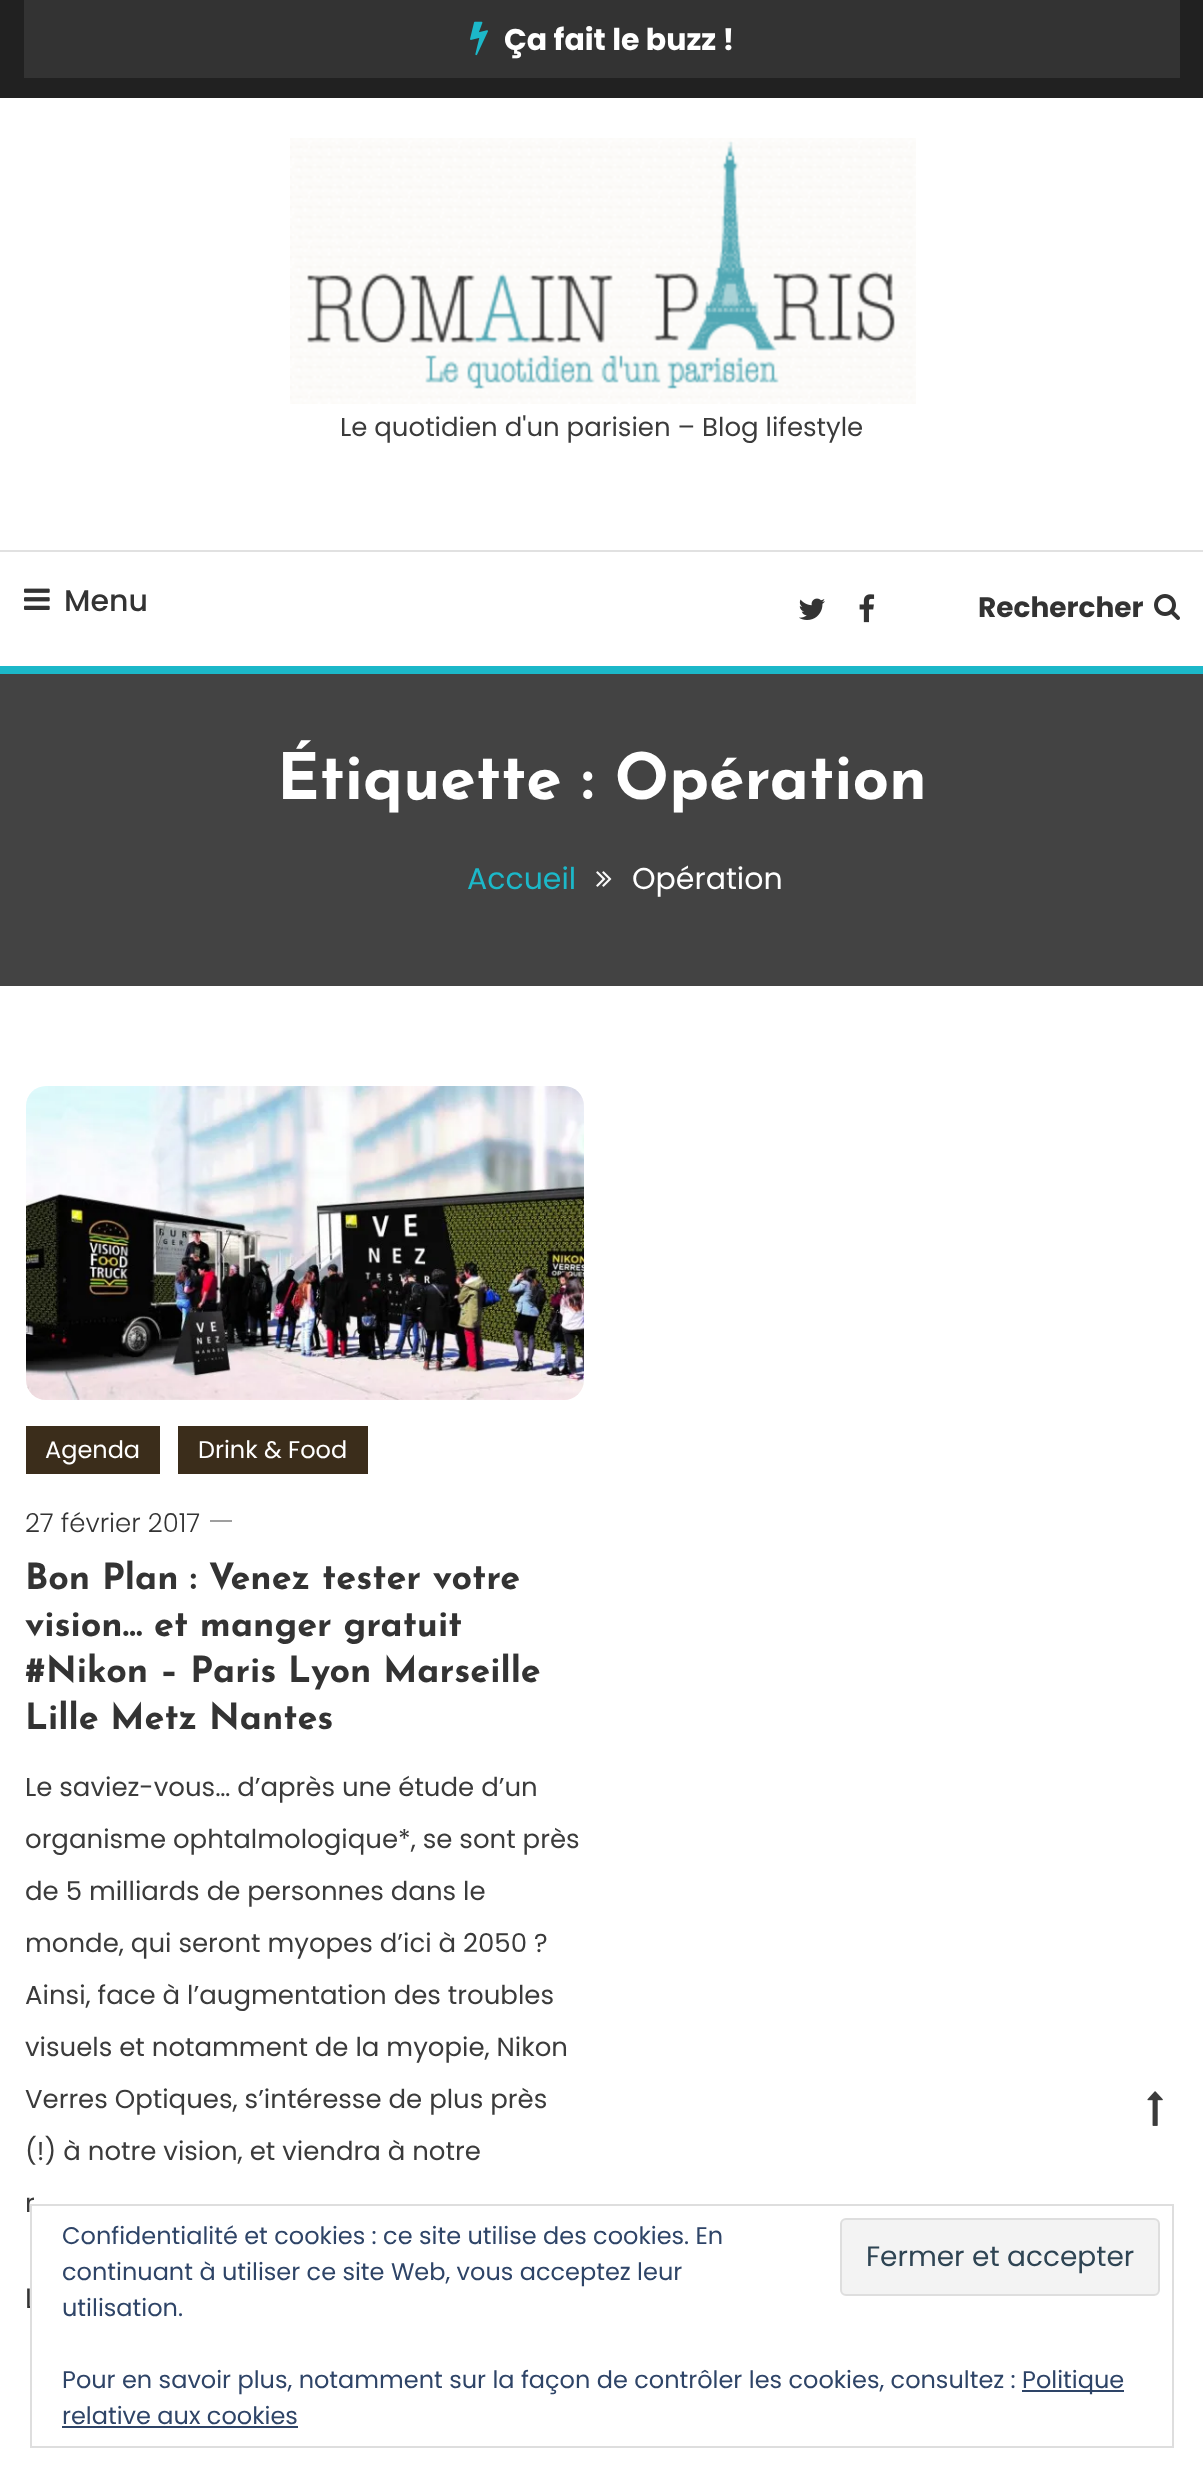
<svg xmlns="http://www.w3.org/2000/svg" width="1203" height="2477">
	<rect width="100%" height="100%" fill="#FFFFFF" />
	<rect x="0" y="0" width="1203" height="98" fill="#212121" />
	<rect x="24" y="0" width="1156" height="78" fill="#333333" />
	<image x="470" y="21" width="18" height="35" href="assets/img1.png" />
	<text x="504" y="50" font-family="Poppins" font-size="30" font-weight="700" fill="#FFFFFF">Ça fait le buzz !</text>
	<image x="290" y="138" width="626" height="266" href="assets/img2.png" />
	<text x="340" y="436" font-family="Poppins" font-size="26" fill="#3B3B3B">Le quotidien d'un parisien – Blog lifestyle</text>
	<rect x="0" y="550" width="1203" height="2" fill="#E1E1E1" />
	<image x="24" y="588" width="26" height="22" href="assets/img3.png" />
	<text x="64" y="611" font-family="Poppins" font-size="30" font-weight="500" fill="#333333">Menu</text>
	<image x="799" y="598" width="26" height="22" href="assets/img4.png" />
	<image x="859" y="594" width="16" height="29" href="assets/img5.png" />
	<text x="978" y="617" font-family="Poppins" font-size="28" font-weight="700" fill="#333333">Rechercher</text>
	<image x="1154" y="594" width="26" height="26" href="assets/img6.png" />
	<rect x="0" y="674" width="1203" height="312" fill="#434343" />
	<rect x="0" y="666" width="1203" height="8" fill="#1CB8C9" />
	<text x="277" y="799" font-family="Josefin Sans" font-size="64" font-weight="700" fill="#FFFFFF">Étiquette : Opération</text>
	<text x="467" y="889" font-family="Poppins" font-size="30" fill="#1CB8C9">Accueil</text>
	<image x="596" y="871" width="16" height="16" href="assets/img7.png" />
	<text x="632" y="889" font-family="Poppins" font-size="30" fill="#FFFFFF">Opération</text>
	<image x="26" y="1086" width="558" height="314" href="assets/img8.png" />
	<rect x="26" y="1426" width="134" height="48" fill="#3B2D1B" />
	<text x="45" y="1458" font-family="Poppins" font-size="24" fill="#FFFFFF">Agenda</text>
	<rect x="178" y="1426" width="190" height="48" fill="#3B2D1B" />
	<text x="198" y="1458" font-family="Poppins" font-size="24" fill="#FFFFFF">Drink &amp; Food</text>
	<text x="25" y="1532" font-family="Poppins" font-size="26" font-weight="300" fill="#333333">27 février 2017</text>
	<rect x="210" y="1520" width="22" height="2" fill="#9F9F9F" />
	<g font-family="Josefin Sans" font-size="36" font-weight="700" fill="#333333">
		<text x="25" y="1589">Bon Plan : Venez tester votre</text>
		<text x="25" y="1636">vision… et manger gratuit</text>
		<text x="25" y="1682">#Nikon – Paris Lyon Marseille</text>
		<text x="25" y="1729">Lille Metz Nantes</text>
	</g>
	<g font-family="Poppins" font-size="26" fill="#3B3B3B">
		<text x="25" y="1796">Le saviez-vous… d’après une étude d’un</text>
		<text x="25" y="1848">organisme ophtalmologique*, se sont près</text>
		<text x="25" y="1900">de 5 milliards de personnes dans le</text>
		<text x="25" y="1952">monde, qui seront myopes d’ici à 2050 ?</text>
		<text x="25" y="2004">Ainsi, face à l’augmentation des troubles</text>
		<text x="25" y="2056">visuels et notamment de la myopie, Nikon</text>
		<text x="25" y="2108">Verres Optiques, s’intéresse de plus près</text>
		<text x="25" y="2160">(!) à notre vision, et viendra à notre</text>
		<text x="25" y="2212">r</text>
	</g>
	<text x="25" y="2308" font-family="Poppins" font-size="28" fill="#333333">L</text>
	<image x="1147" y="2091" width="16" height="35" href="assets/img9.png" />
	<rect x="32" y="2305" width="5" height="3" fill="#FFFFFF" />
	<rect x="31" y="2205" width="1142" height="242" fill="none" stroke="#DEDEDE" stroke-width="2" />
	<g font-family="Poppins" font-size="24" fill="#2E4467">
		<text x="62" y="2244">Confidentialité et cookies : ce site utilise des cookies. En</text>
		<text x="62" y="2280">continuant à utiliser ce site Web, vous acceptez leur</text>
	</g>
	<rect x="841" y="2219" width="318" height="76" rx="5" fill="#F3F3F3" stroke="#DEDEDE" stroke-width="2" />
	<text x="866" y="2266" font-family="Poppins" font-size="28" fill="#2E4453">Fermer et accepter</text>
	<g font-family="Poppins" font-size="24" fill="#2E4467">
		<text x="62" y="2316">utilisation.</text>
		<text x="62" y="2388">Pour en savoir plus, notamment sur la façon de contrôler les cookies, consultez :</text>
	</g>
	<rect x="1022" y="2390" width="102" height="2" fill="#2E4467" />
	<g font-family="Poppins" font-size="24" fill="#2E4467">
		<text x="1022" y="2388">Politique</text>
		<text x="62" y="2424">relative aux cookies</text>
	</g>
	<rect x="62" y="2426" width="236" height="2" fill="#2E4467" />
</svg>
